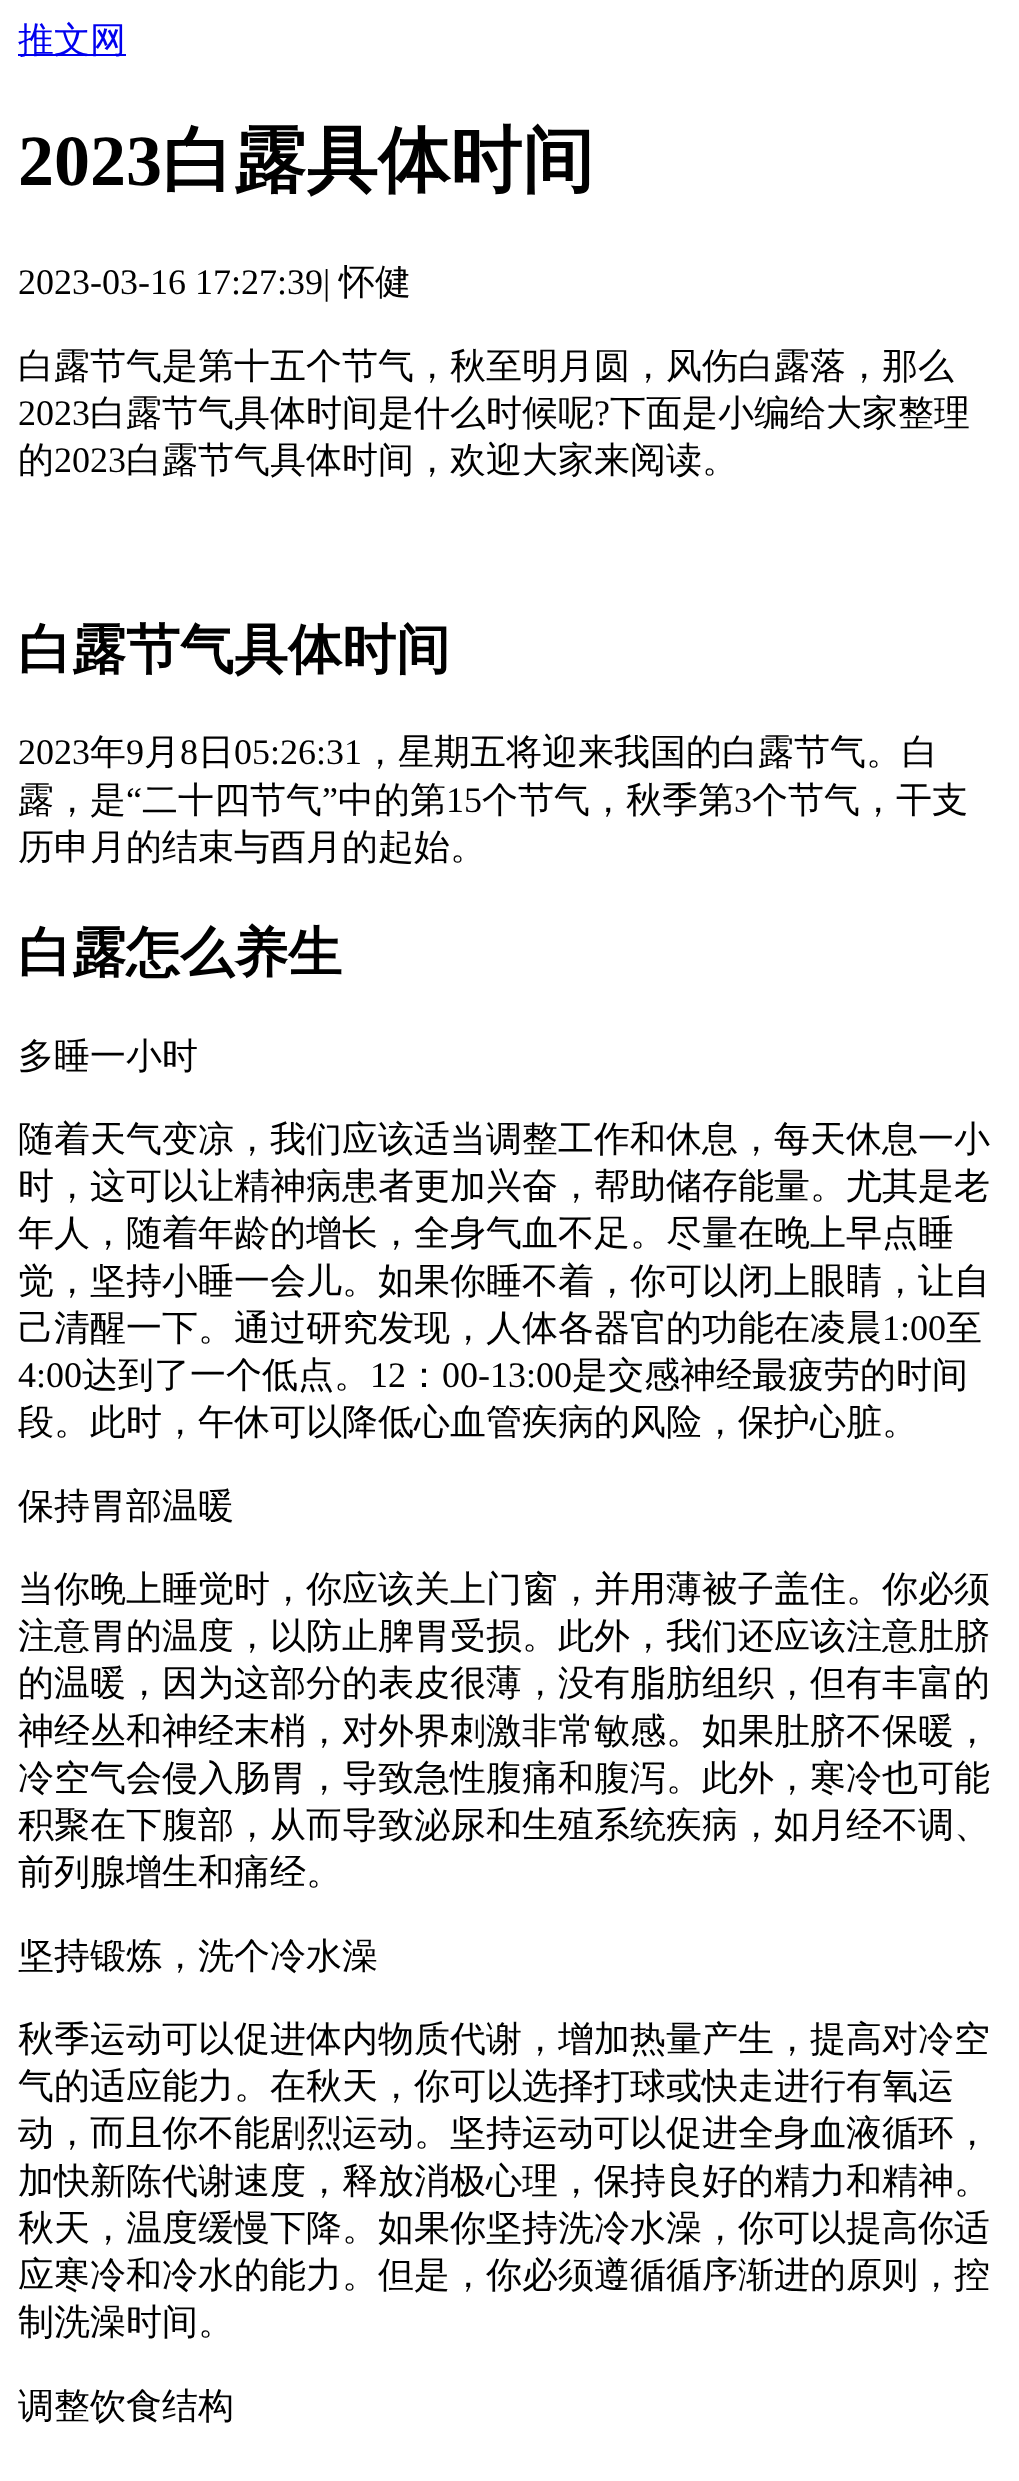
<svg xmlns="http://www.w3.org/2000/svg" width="1019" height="2481">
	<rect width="100%" height="100%" fill="#FFFFFF" />
	<rect x="18" y="54" width="108" height="2" fill="#0000EE" />
	<text x="18" y="52" font-family="WenQuanYi Zen Hei" font-size="36" font-weight="500" fill="#0000EE">推文网</text>
	<text x="18" y="185" font-family="Liberation Serif" font-size="72" font-weight="700" fill="#000000">2023</text>
	<text x="162" y="185" font-family="WenQuanYi Zen Hei" font-size="72" font-weight="700" fill="#000000">白露具体时间</text>
	<text x="18" y="294" font-family="Liberation Serif" font-size="36" fill="#000000">2023-03-16 17:27:39|</text>
	<g font-family="WenQuanYi Zen Hei" font-size="36" font-weight="500" fill="#000000">
		<text x="339" y="294">怀健</text>
		<text x="18" y="378">白露节气是第十五个节气，秋至明月圆，风伤白露落，那么</text>
	</g>
	<text x="18" y="425" font-family="Liberation Serif" font-size="36" fill="#000000">2023</text>
	<text x="90" y="425" font-family="WenQuanYi Zen Hei" font-size="36" font-weight="500" fill="#000000">白露节气具体时间是什么时候呢</text>
	<text x="594" y="425" font-family="Liberation Serif" font-size="36" fill="#000000">?</text>
	<g font-family="WenQuanYi Zen Hei" font-size="36" font-weight="500" fill="#000000">
		<text x="610" y="425">下面是小编给大家整理</text>
		<text x="18" y="472">的</text>
	</g>
	<text x="54" y="472" font-family="Liberation Serif" font-size="36" fill="#000000">2023</text>
	<text x="126" y="472" font-family="WenQuanYi Zen Hei" font-size="36" font-weight="500" fill="#000000">白露节气具体时间，欢迎大家来阅读。</text>
	<text x="18" y="668" font-family="WenQuanYi Zen Hei" font-size="54" font-weight="700" fill="#000000">白露节气具体时间</text>
	<text x="18" y="764" font-family="Liberation Serif" font-size="36" fill="#000000">2023</text>
	<text x="90" y="764" font-family="WenQuanYi Zen Hei" font-size="36" font-weight="500" fill="#000000">年</text>
	<text x="126" y="764" font-family="Liberation Serif" font-size="36" fill="#000000">9</text>
	<text x="144" y="764" font-family="WenQuanYi Zen Hei" font-size="36" font-weight="500" fill="#000000">月</text>
	<text x="180" y="764" font-family="Liberation Serif" font-size="36" fill="#000000">8</text>
	<text x="198" y="764" font-family="WenQuanYi Zen Hei" font-size="36" font-weight="500" fill="#000000">日</text>
	<text x="234" y="764" font-family="Liberation Serif" font-size="36" fill="#000000">05:26:31</text>
	<g font-family="WenQuanYi Zen Hei" font-size="36" font-weight="500" fill="#000000">
		<text x="362" y="764">，星期五将迎来我国的白露节气。白</text>
		<text x="18" y="812">露，是</text>
	</g>
	<text x="126" y="812" font-family="Liberation Serif" font-size="36" fill="#000000">“</text>
	<text x="142" y="812" font-family="WenQuanYi Zen Hei" font-size="36" font-weight="500" fill="#000000">二十四节气</text>
	<text x="322" y="812" font-family="Liberation Serif" font-size="36" fill="#000000">”</text>
	<text x="338" y="812" font-family="WenQuanYi Zen Hei" font-size="36" font-weight="500" fill="#000000">中的第</text>
	<text x="446" y="812" font-family="Liberation Serif" font-size="36" fill="#000000">15</text>
	<text x="482" y="812" font-family="WenQuanYi Zen Hei" font-size="36" font-weight="500" fill="#000000">个节气，秋季第</text>
	<text x="734" y="812" font-family="Liberation Serif" font-size="36" fill="#000000">3</text>
	<g font-family="WenQuanYi Zen Hei" font-size="36" font-weight="500" fill="#000000">
		<text x="752" y="812">个节气，干支</text>
		<text x="18" y="859">历申月的结束与酉月的起始。</text>
	</g>
	<text x="18" y="971" font-family="WenQuanYi Zen Hei" font-size="54" font-weight="700" fill="#000000">白露怎么养生</text>
	<g font-family="WenQuanYi Zen Hei" font-size="36" font-weight="500" fill="#000000">
		<text x="18" y="1068">多睡一小时</text>
		<text x="18" y="1151">随着天气变凉，我们应该适当调整工作和休息，每天休息一小</text>
		<text x="18" y="1198">时，这可以让精神病患者更加兴奋，帮助储存能量。尤其是老</text>
		<text x="18" y="1245">年人，随着年龄的增长，全身气血不足。尽量在晚上早点睡</text>
		<text x="18" y="1293">觉，坚持小睡一会儿。如果你睡不着，你可以闭上眼睛，让自</text>
		<text x="18" y="1340">己清醒一下。通过研究发现，人体各器官的功能在凌晨</text>
	</g>
	<text x="882" y="1340" font-family="Liberation Serif" font-size="36" fill="#000000">1:00</text>
	<text x="946" y="1340" font-family="WenQuanYi Zen Hei" font-size="36" font-weight="500" fill="#000000">至</text>
	<text x="18" y="1387" font-family="Liberation Serif" font-size="36" fill="#000000">4:00</text>
	<text x="82" y="1387" font-family="WenQuanYi Zen Hei" font-size="36" font-weight="500" fill="#000000">达到了一个低点。</text>
	<text x="370" y="1387" font-family="Liberation Serif" font-size="36" fill="#000000">12</text>
	<text x="406" y="1387" font-family="WenQuanYi Zen Hei" font-size="36" font-weight="500" fill="#000000">：</text>
	<text x="442" y="1387" font-family="Liberation Serif" font-size="36" fill="#000000">00-13:00</text>
	<g font-family="WenQuanYi Zen Hei" font-size="36" font-weight="500" fill="#000000">
		<text x="572" y="1387">是交感神经最疲劳的时间</text>
		<text x="18" y="1434">段。此时，午休可以降低心血管疾病的风险，保护心脏。</text>
		<text x="18" y="1518">保持胃部温暖</text>
		<text x="18" y="1601">当你晚上睡觉时，你应该关上门窗，并用薄被子盖住。你必须</text>
		<text x="18" y="1648">注意胃的温度，以防止脾胃受损。此外，我们还应该注意肚脐</text>
		<text x="18" y="1695">的温暖，因为这部分的表皮很薄，没有脂肪组织，但有丰富的</text>
		<text x="18" y="1743">神经丛和神经末梢，对外界刺激非常敏感。如果肚脐不保暖，</text>
		<text x="18" y="1790">冷空气会侵入肠胃，导致急性腹痛和腹泻。此外，寒冷也可能</text>
		<text x="18" y="1837">积聚在下腹部，从而导致泌尿和生殖系统疾病，如月经不调、</text>
		<text x="18" y="1884">前列腺增生和痛经。</text>
		<text x="18" y="1968">坚持锻炼，洗个冷水澡</text>
		<text x="18" y="2051">秋季运动可以促进体内物质代谢，增加热量产生，提高对冷空</text>
		<text x="18" y="2098">气的适应能力。在秋天，你可以选择打球或快走进行有氧运</text>
		<text x="18" y="2145">动，而且你不能剧烈运动。坚持运动可以促进全身血液循环，</text>
		<text x="18" y="2193">加快新陈代谢速度，释放消极心理，保持良好的精力和精神。</text>
		<text x="18" y="2240">秋天，温度缓慢下降。如果你坚持洗冷水澡，你可以提高你适</text>
		<text x="18" y="2287">应寒冷和冷水的能力。但是，你必须遵循循序渐进的原则，控</text>
		<text x="18" y="2334">制洗澡时间。</text>
		<text x="18" y="2418">调整饮食结构</text>
	</g>
</svg>
